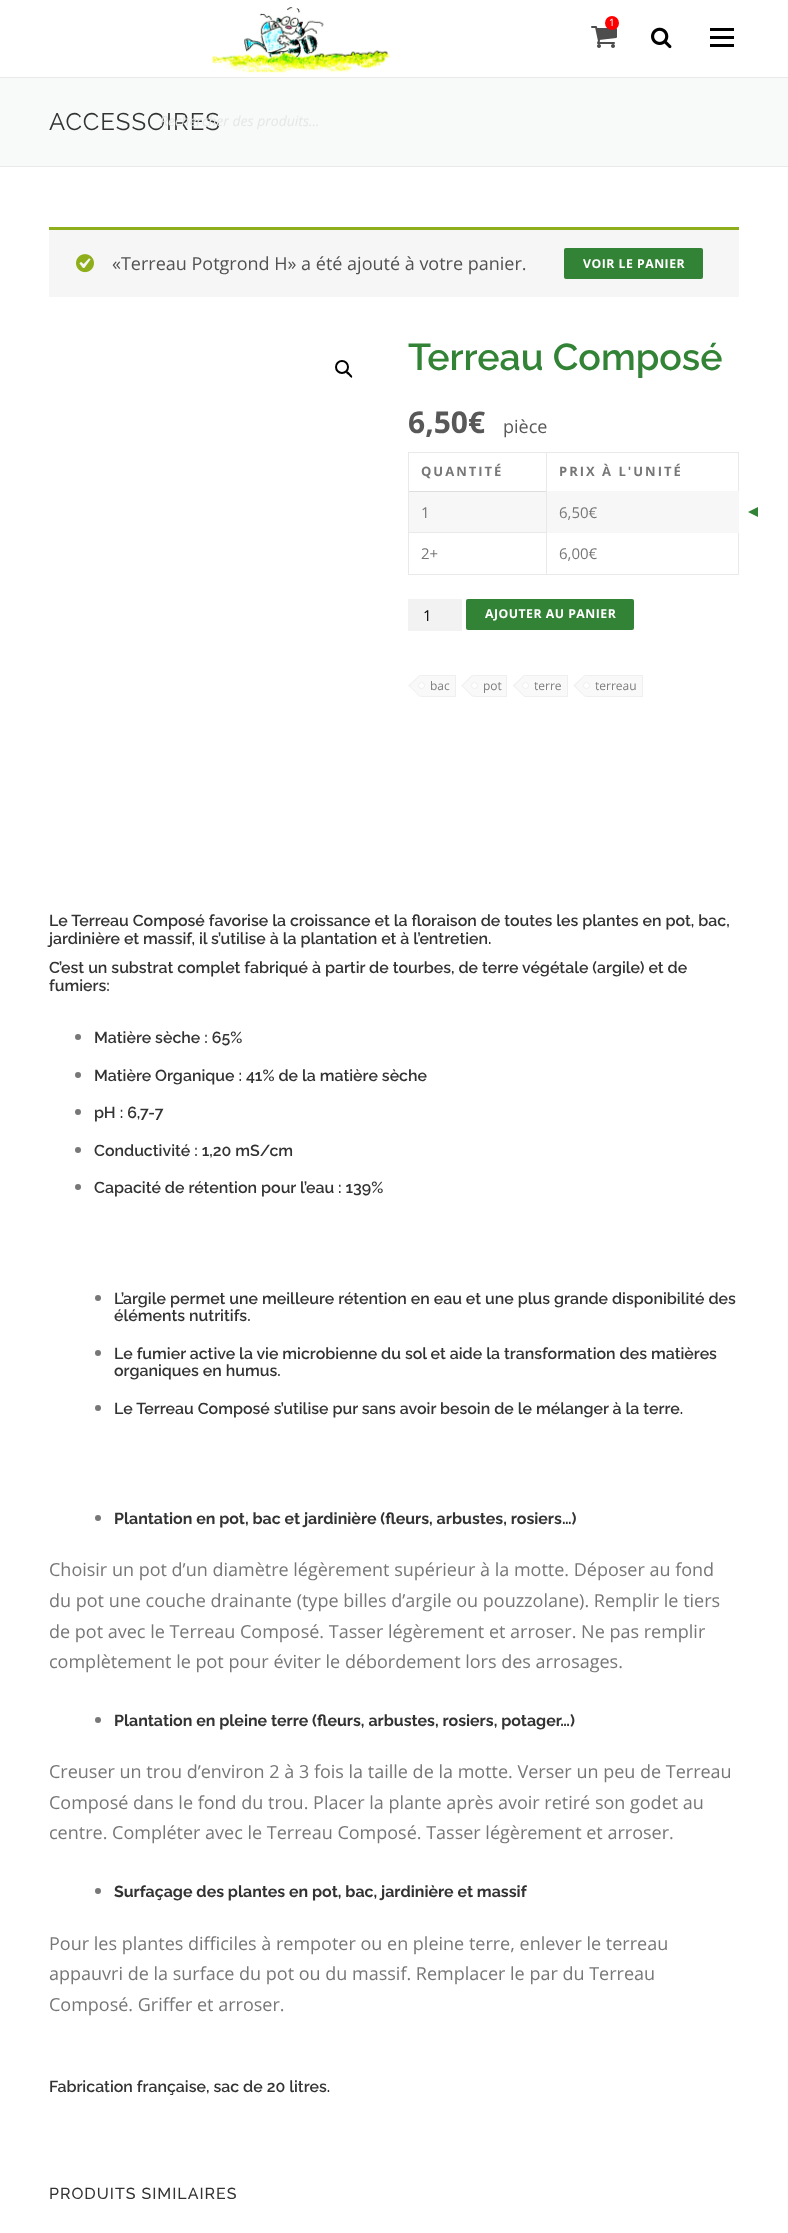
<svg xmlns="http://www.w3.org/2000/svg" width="788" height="2233">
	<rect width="100%" height="100%" fill="#FFFFFF" />
	<rect x="0" y="78" width="788" height="88" fill="#F8F9F9" />
	<rect x="0" y="77" width="788" height="1" fill="#E9E9E9" />
	<rect x="0" y="166" width="788" height="1" fill="#E9E9E9" />
	<text x="49" y="130" font-family="Raleway" font-size="24" font-weight="100" letter-spacing="1" fill="#333333">ACCESSOIRES</text>
	<image x="244" y="7" width="80" height="52" href="assets/img1.png" />
	<image x="211" y="50" width="180" height="23" href="assets/img2.png" />
	<image x="591" y="26" width="26" height="22" href="assets/img3.png" />
	<circle cx="612" cy="23" r="7" fill="#FF0000" />
	<text x="609" y="26" font-family="Open Sans" font-size="10" fill="#FFFFFF">1</text>
	<rect x="710" y="36" width="24" height="3" fill="#000000" />
	<rect x="710" y="28" width="24" height="3" fill="#000000" />
	<rect x="710" y="44" width="24" height="3" fill="#000000" />
	<image x="651" y="27" width="21" height="22" href="assets/img4.png" />
	<text x="160" y="126" font-family="Open Sans" font-size="14" font-style="italic" fill="#E5E6E6">Rechercher des produits...</text>
	<rect x="49" y="230" width="690" height="67" fill="#F7F6F7" />
	<rect x="49" y="227" width="690" height="3" fill="#8FAE1B" />
	<image x="76" y="254" width="18" height="19" href="assets/img5.png" />
	<text x="112" y="270" font-family="Open Sans" font-size="18" fill="#515151">«Terreau Potgrond H» a été ajouté à votre panier.</text>
	<rect x="564" y="248" width="139" height="31" rx="2" fill="#338336" />
	<text x="583" y="268" font-family="Open Sans" font-size="12.25" font-weight="700" letter-spacing="0.5" fill="#FFFFFF">VOIR LE PANIER</text>
	<circle cx="342" cy="367" r="6" fill="none" stroke="#000000" stroke-width="2" />
	<path d="M346.5 371.5C347.5 370.5 349.5 373 350 373.5C350.5 374.5 353 376 352 377.5C351 378.5 349 375.5 348.5 375C348 374.5 345 373 346.5 371.5Z" fill="#000000" />
	<text x="408" y="370" font-family="'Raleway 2'" font-size="37.5" font-weight="100" fill="#338336">Terreau Composé</text>
	<text x="408" y="433" font-family="Open Sans" font-size="30" font-weight="700" fill="#585858">6,50€</text>
	<text x="503" y="433" font-family="Open Sans" font-size="18" fill="#585858">pièce</text>
	<rect x="546" y="452" width="193" height="1" fill="#E9E9E9" />
	<rect x="408" y="491" width="139" height="1" fill="#DEDEDE" />
	<rect x="738" y="532" width="1" height="43" fill="#E9E9E9" />
	<rect x="546" y="574" width="193" height="1" fill="#E9E9E9" />
	<rect x="546" y="491" width="1" height="84" fill="#E9E9E9" />
	<rect x="546" y="452" width="1" height="40" fill="#E9E9E9" />
	<rect x="408" y="452" width="139" height="1" fill="#E9E9E9" />
	<rect x="408" y="574" width="139" height="1" fill="#E9E9E9" />
	<rect x="408" y="532" width="1" height="43" fill="#E9E9E9" />
	<rect x="408" y="532" width="139" height="1" fill="#E9E9E9" />
	<rect x="408" y="491" width="1" height="42" fill="#E9E9E9" />
	<rect x="408" y="452" width="1" height="40" fill="#E9E9E9" />
	<text x="421" y="476" font-family="Open Sans" font-size="13" font-weight="700" letter-spacing="2" fill="#777777">QUANTITÉ</text>
	<rect x="738" y="452" width="1" height="40" fill="#E9E9E9" />
	<text x="559" y="476" font-family="Open Sans" font-size="13" font-weight="700" letter-spacing="2" fill="#777777">PRIX À L'UNITÉ</text>
	<rect x="409" y="492" width="137" height="40" fill="#F7F7F7" />
	<text x="421" y="518" font-family="Open Sans" font-size="15" fill="#777777">1</text>
	<rect x="547" y="491" width="192" height="42" fill="#F7F7F7" />
	<text x="559" y="518" font-family="Open Sans" font-size="15" fill="#777777">6,50€</text>
	<path d="M758 507V517L748 512Z" fill="#338336" />
	<g font-family="Open Sans" font-size="15" fill="#777777">
		<text x="421" y="559">2+</text>
		<text x="559" y="559">6,00€</text>
	</g>
	<rect x="408" y="599" width="54" height="32" fill="#F2F2F2" />
	<text x="423" y="621" font-family="Open Sans" font-size="15" fill="#000000">1</text>
	<rect x="466" y="599" width="168" height="31" rx="2" fill="#338336" />
	<text x="485" y="618" font-family="Open Sans" font-size="12.25" font-weight="700" letter-spacing="0.5" fill="#FFFFFF">AJOUTER AU PANIER</text>
	<rect x="421.5" y="675.5" width="34" height="21" fill="#F9F9F9" stroke="#EFEFEF" />
	<text x="430" y="690" font-family="Open Sans" font-size="12" fill="#7D7D7D">bac</text>
	<path d="M420 674.5L431 685.5L420 697L408.5 685.5Z" fill="#F9F9F9" />
	<path d="M409 685L420.5 696.5L420 697L408.5 685.5Z" fill="#EFEFEF" />
	<path d="M420 674.5L420.5 675L409 686.5L408.5 685.5Z" fill="#EFEFEF" />
	<circle cx="421.5" cy="685.5" r="3" fill="#FFFFFF" stroke="#EFEFEF" />
	<rect x="474.5" y="675.5" width="32" height="21" fill="#F9F9F9" stroke="#EFEFEF" />
	<text x="483" y="690" font-family="Open Sans" font-size="12" fill="#7D7D7D">pot</text>
	<path d="M472.5 674.5L484 685.5L472.5 697L461.5 685.5Z" fill="#F9F9F9" />
	<path d="M462 685L473.5 696.5L472.5 697L461.5 685.5Z" fill="#EFEFEF" />
	<path d="M472.5 674.5L473.5 675L462 686.5L461.5 685.5Z" fill="#EFEFEF" />
	<circle cx="474.5" cy="685.5" r="3" fill="#FFFFFF" stroke="#EFEFEF" />
	<rect x="525.5" y="675.5" width="42" height="21" fill="#F9F9F9" stroke="#EFEFEF" />
	<text x="534" y="690" font-family="Open Sans" font-size="12" fill="#7D7D7D">terre</text>
	<path d="M524.5 674.5L535.5 685.5L524.5 697L513 685.5Z" fill="#F9F9F9" />
	<path d="M514 685L525 696.5L524.5 697L513 685.5Z" fill="#EFEFEF" />
	<path d="M524.5 674.5L525 675L514 686.5L513 685.5Z" fill="#EFEFEF" />
	<circle cx="525.5" cy="685.5" r="3" fill="#FFFFFF" stroke="#EFEFEF" />
	<rect x="586.5" y="675.5" width="56" height="21" fill="#F9F9F9" stroke="#EFEFEF" />
	<text x="595" y="690" font-family="Open Sans" font-size="12" fill="#7D7D7D">terreau</text>
	<path d="M585 674.5L596.5 685.5L585 697L573.5 685.5Z" fill="#F9F9F9" />
	<path d="M574.5 685L585.5 696.5L585 697L573.5 685.5Z" fill="#EFEFEF" />
	<path d="M585 674.5L585.5 675L574.5 686.5L573.5 685.5Z" fill="#EFEFEF" />
	<circle cx="586.5" cy="685.5" r="3" fill="#FFFFFF" stroke="#EFEFEF" />
	<g font-family="'Raleway 2'" font-size="15.95" font-weight="100" fill="#333333">
		<text x="49" y="926">Le Terreau Composé favorise la croissance et la floraison de toutes les plantes en pot, bac,</text>
		<text x="49" y="944">jardinière et massif, il s’utilise à la plantation et à l’entretien.</text>
		<text x="49" y="973">C’est un substrat complet fabriqué à partir de tourbes, de terre végétale (argile) et de</text>
		<text x="49" y="991">fumiers:</text>
	</g>
	<circle cx="78" cy="1037" r="3" fill="#777777" />
	<text x="94" y="1043" font-family="'Raleway 2'" font-size="15.95" font-weight="100" fill="#333333">Matière sèche : 65%</text>
	<circle cx="78" cy="1075" r="3" fill="#777777" />
	<text x="94" y="1081" font-family="'Raleway 2'" font-size="15.95" font-weight="100" fill="#333333">Matière Organique : 41% de la matière sèche</text>
	<circle cx="78" cy="1112" r="3" fill="#777777" />
	<text x="94" y="1118" font-family="'Raleway 2'" font-size="15.95" font-weight="100" fill="#333333">pH : 6,7-7</text>
	<circle cx="78" cy="1150" r="3" fill="#777777" />
	<text x="94" y="1156" font-family="'Raleway 2'" font-size="15.95" font-weight="100" fill="#333333">Conductivité : 1,20 mS/cm</text>
	<circle cx="78" cy="1187" r="3" fill="#777777" />
	<text x="94" y="1193" font-family="'Raleway 2'" font-size="15.95" font-weight="100" fill="#333333">Capacité de rétention pour l’eau : 139%</text>
	<circle cx="98" cy="1298" r="3" fill="#777777" />
	<g font-family="'Raleway 2'" font-size="15.95" font-weight="100" fill="#333333">
		<text x="114" y="1304">L’argile permet une meilleure rétention en eau et une plus grande disponibilité des</text>
		<text x="114" y="1321">éléments nutritifs.</text>
	</g>
	<circle cx="98" cy="1353" r="3" fill="#777777" />
	<g font-family="'Raleway 2'" font-size="15.95" font-weight="100" fill="#333333">
		<text x="114" y="1359">Le fumier active la vie microbienne du sol et aide la transformation des matières</text>
		<text x="114" y="1376">organiques en humus.</text>
	</g>
	<circle cx="98" cy="1408" r="3" fill="#777777" />
	<text x="114" y="1414" font-family="'Raleway 2'" font-size="15.95" font-weight="100" fill="#333333">Le Terreau Composé s’utilise pur sans avoir besoin de le mélanger à la terre.</text>
	<circle cx="98" cy="1518" r="3" fill="#777777" />
	<text x="114" y="1524" font-family="'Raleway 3'" font-size="15.95" font-weight="100" fill="#333333">Plantation en pot, bac et jardinière (fleurs, arbustes, rosiers…)</text>
	<g font-family="Open Sans" font-size="18" fill="#777777">
		<text x="49" y="1576">Choisir un pot d’un diamètre légèrement supérieur à la motte. Déposer au fond</text>
		<text x="49" y="1607">du pot une couche drainante (type billes d’argile ou pouzzolane). Remplir le tiers</text>
		<text x="49" y="1638">de pot avec le Terreau Composé. Tasser légèrement et arroser. Ne pas remplir</text>
		<text x="49" y="1668">complètement le pot pour éviter le débordement lors des arrosages.</text>
	</g>
	<circle cx="98" cy="1720" r="3" fill="#777777" />
	<text x="114" y="1726" font-family="'Raleway 3'" font-size="15.95" font-weight="100" fill="#333333">Plantation en pleine terre (fleurs, arbustes, rosiers, potager…)</text>
	<g font-family="Open Sans" font-size="18" fill="#777777">
		<text x="49" y="1778">Creuser un trou d’environ 2 à 3 fois la taille de la motte. Verser un peu de Terreau</text>
		<text x="49" y="1809">Composé dans le fond du trou. Placer la plante après avoir retiré son godet au</text>
		<text x="49" y="1839">centre. Compléter avec le Terreau Composé. Tasser légèrement et arroser.</text>
	</g>
	<circle cx="98" cy="1891" r="3" fill="#777777" />
	<text x="114" y="1897" font-family="'Raleway 3'" font-size="15.95" font-weight="100" fill="#333333">Surfaçage des plantes en pot, bac, jardinière et massif</text>
	<g font-family="Open Sans" font-size="18" fill="#777777">
		<text x="49" y="1950">Pour les plantes difficiles à rempoter ou en pleine terre, enlever le terreau</text>
		<text x="49" y="1980">appauvri de la surface du pot ou du massif. Remplacer le par du Terreau</text>
		<text x="49" y="2011">Composé. Griffer et arroser.</text>
	</g>
	<text x="49" y="2092" font-family="'Raleway 2'" font-size="15.95" font-weight="100" fill="#333333">Fabrication française, sac de 20 litres.</text>
	<text x="49" y="2199" font-family="'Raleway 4'" font-size="15.95" font-weight="100" letter-spacing="1" fill="#333333">PRODUITS SIMILAIRES</text>
</svg>
